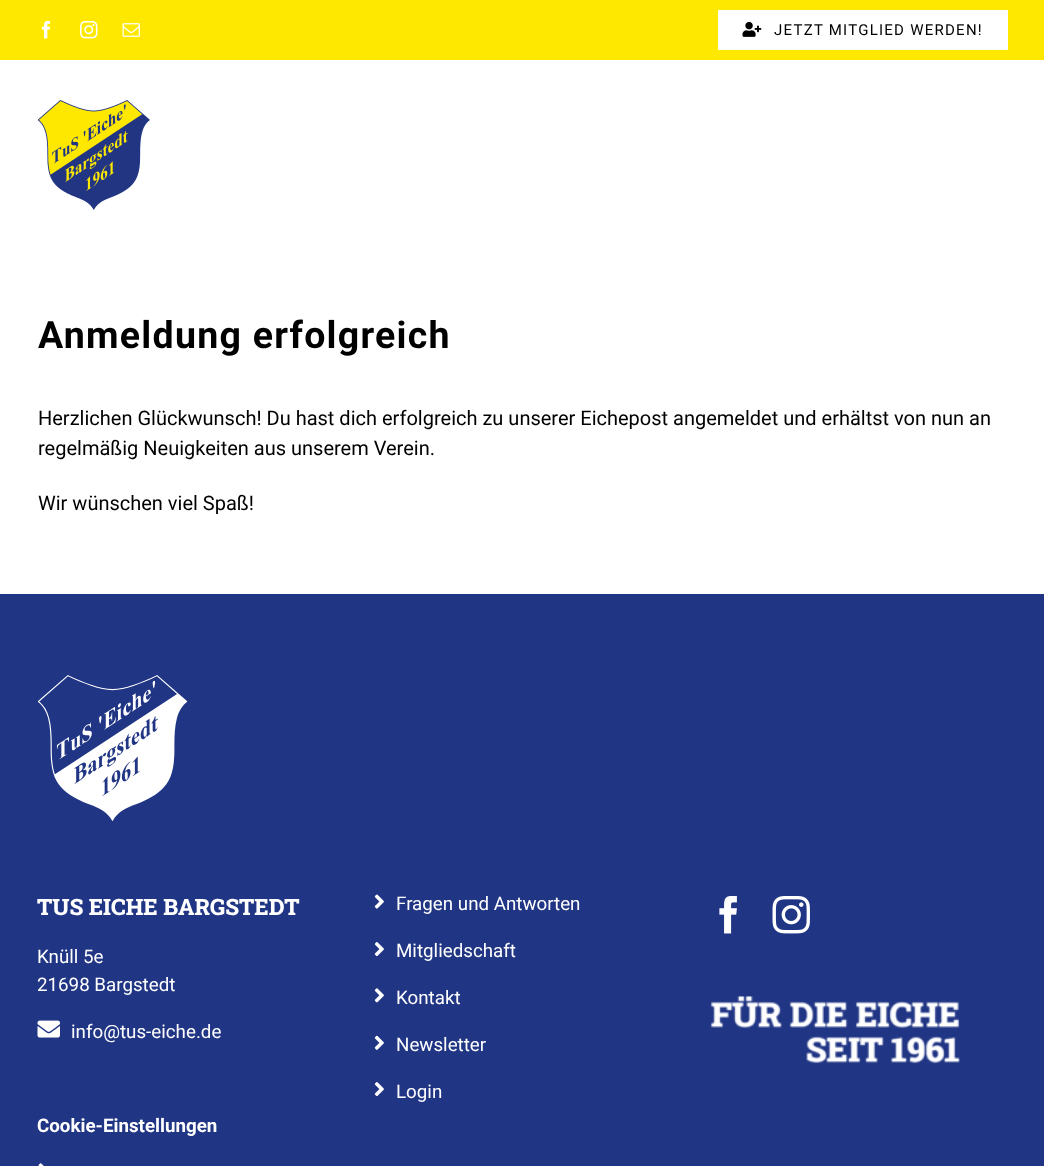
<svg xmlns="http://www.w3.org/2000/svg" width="1044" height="1166">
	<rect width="100%" height="100%" fill="#FFFFFF" />
	<rect x="0" y="0" width="1044" height="60" fill="#FFE800" />
	<image x="41" y="21" width="10" height="18" href="assets/img1.png" />
	<image x="80" y="21" width="18" height="18" href="assets/img2.png" />
	<image x="122" y="23" width="18" height="14" href="assets/img3.png" />
	<rect x="718" y="10" width="290" height="40" fill="#FFFFFF" />
	<image x="742" y="21" width="20" height="16" href="assets/img4.png" />
	<text x="774" y="35" font-family="Roboto" font-size="15" letter-spacing="1.25" fill="#000000">JETZT MITGLIED WERDEN!</text>
	<image x="38" y="100" width="112" height="110" href="assets/img5.png" />
	<text x="38" y="348" font-family="Roboto" font-size="37.5" font-weight="700" letter-spacing="1.25" fill="#000000">Anmeldung erfolgreich</text>
	<g font-family="Roboto" font-size="20" fill="#000000">
		<text x="38" y="425">Herzlichen Glückwunsch! Du hast dich erfolgreich zu unserer Eichepost angemeldet und erhältst von nun an</text>
		<text x="38" y="455">regelmäßig Neuigkeiten aus unserem Verein.</text>
		<text x="38" y="510">Wir wünschen viel Spaß!</text>
	</g>
	<rect x="0" y="594" width="1044" height="572" fill="#203584" />
	<image x="38" y="675" width="150" height="146" href="assets/img6.png" />
	<text x="37" y="915" font-family="Roboto Slab" font-size="22.5" font-weight="800" fill="#FFFFFF">TUS EICHE BARGSTEDT</text>
	<g font-family="Roboto" font-size="18.75" fill="#FFFFFF">
		<text x="37" y="963">Knüll 5e</text>
		<text x="37" y="991">21698 Bargstedt</text>
	</g>
	<image x="37" y="1020" width="23" height="18" href="assets/img7.png" />
	<text x="71" y="1038" font-family="Roboto" font-size="18.75" fill="#FFFFFF">info@tus-eiche.de</text>
	<text x="37" y="1132" font-family="Roboto" font-size="18.75" font-weight="700" fill="#FFFFFF">Cookie-Einstellungen</text>
	<image x="38" y="1163" width="6" height="3" href="assets/img8.png" />
	<image x="374" y="894" width="10" height="15" href="assets/img9.png" />
	<text x="396" y="910" font-family="Roboto" font-size="18.75" fill="#FFFFFF">Fragen und Antworten</text>
	<image x="374" y="942" width="10" height="15" href="assets/img10.png" />
	<text x="396" y="957" font-family="Roboto" font-size="18.75" fill="#FFFFFF">Mitgliedschaft</text>
	<image x="374" y="988" width="10" height="15" href="assets/img11.png" />
	<text x="396" y="1004" font-family="Roboto" font-size="18.75" fill="#FFFFFF">Kontakt</text>
	<image x="374" y="1035" width="10" height="15" href="assets/img12.png" />
	<text x="396" y="1051" font-family="Roboto" font-size="18.75" fill="#FFFFFF">Newsletter</text>
	<image x="374" y="1082" width="10" height="15" href="assets/img10.png" />
	<text x="396" y="1098" font-family="Roboto" font-size="18.75" fill="#FFFFFF">Login</text>
	<image x="719" y="896" width="18" height="38" href="assets/img13.png" />
	<image x="772" y="896" width="38" height="38" href="assets/img14.png" />
	<image x="710" y="996" width="250" height="68" href="assets/img15.png" />
</svg>
